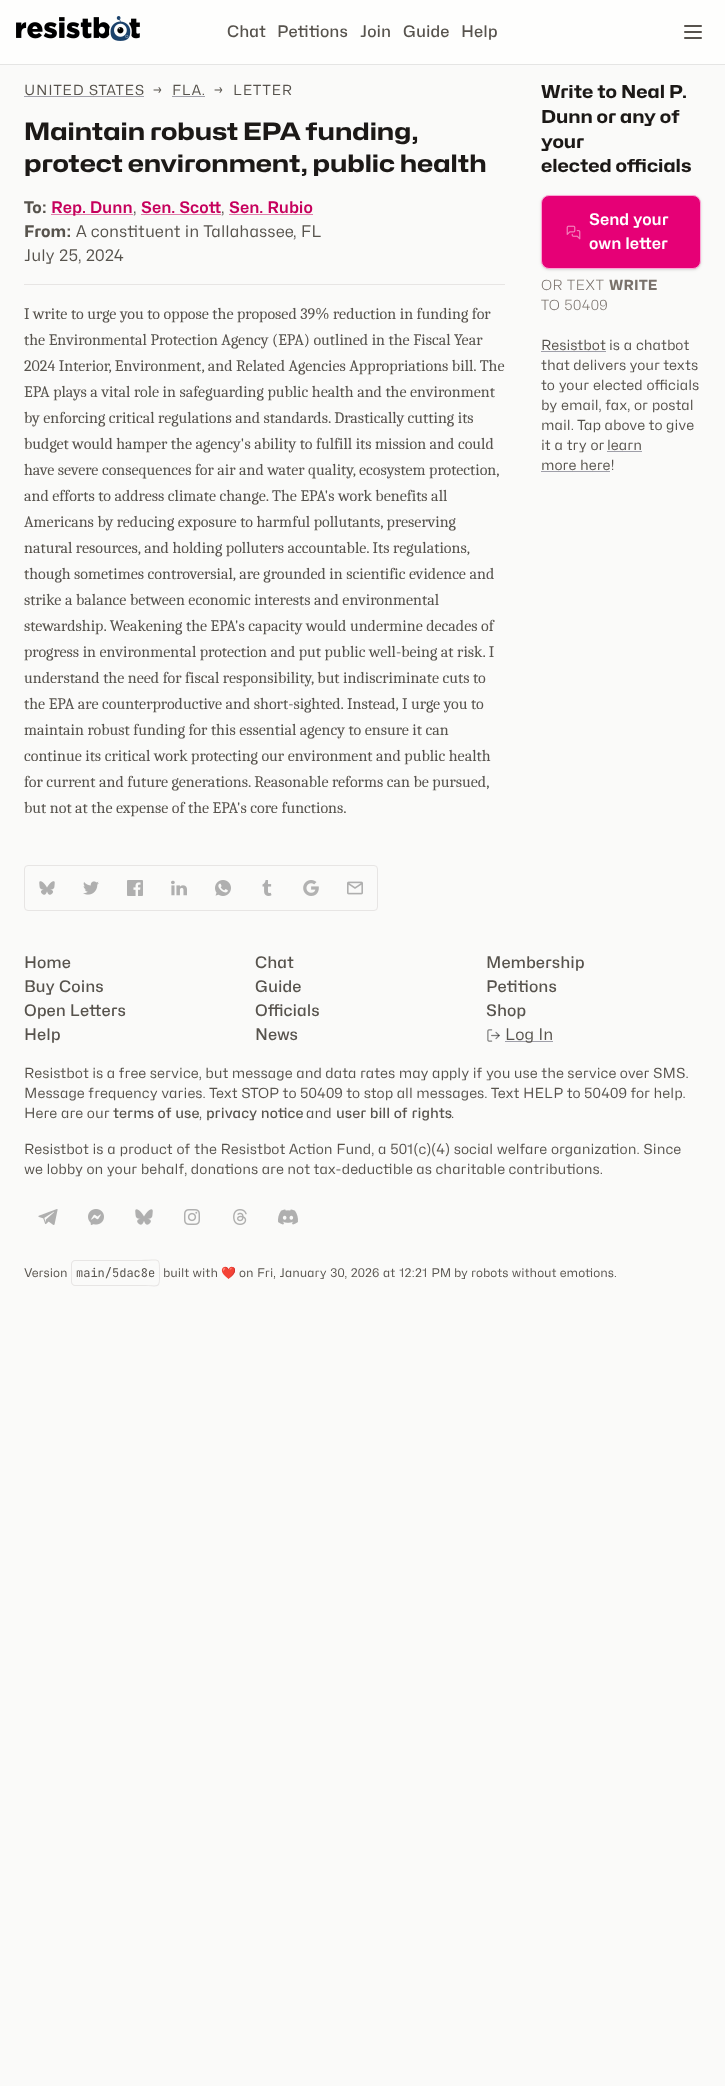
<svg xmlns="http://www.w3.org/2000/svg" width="725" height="2086">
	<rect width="100%" height="100%" fill="#FAFAF9" />
	<rect x="0" y="0" width="725" height="64" fill="#FEFEFD" />
	<rect x="0" y="64" width="725" height="1" fill="#E5E5E4" />
	<image x="16" y="16" width="124" height="25" href="assets/img1.png" />
	<g font-family="Hubot Sans" font-size="16" font-weight="500" fill="#57534D">
		<text x="227" y="37">Chat</text>
		<text x="277" y="37">Petitions</text>
		<text x="360" y="37">Join</text>
		<text x="403" y="37">Guide</text>
		<text x="461" y="37">Help</text>
	</g>
	<image x="684" y="25" width="18" height="14" href="assets/img2.png" />
	<text x="24" y="95" font-family="Hubot Sans" font-size="14" letter-spacing="0.75" fill="#57534D">UNITED STATES</text>
	<rect x="24" y="96" width="120" height="1" fill="#9F9FA9" />
	<g font-family="Hubot Sans" font-size="14" letter-spacing="0.75" fill="#57534D">
		<text x="152" y="95">→</text>
		<text x="172" y="95">FLA.</text>
	</g>
	<rect x="172" y="96" width="33" height="1" fill="#9F9FA9" />
	<g font-family="Hubot Sans" font-size="14" letter-spacing="0.75" fill="#57534D">
		<text x="213" y="95">→</text>
		<text x="233" y="95">LETTER</text>
	</g>
	<rect x="24" y="284" width="481" height="1" fill="#E7E5E4" />
	<g font-family="Hubot Sans" font-size="24" font-weight="700" fill="#1C1917">
		<text x="24" y="140">Maintain robust EPA funding,</text>
		<text x="24" y="172">protect environment, public health</text>
	</g>
	<text x="24" y="213" font-family="'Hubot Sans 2'" font-size="16" font-weight="700" fill="#57534D">To:</text>
	<rect x="51" y="214" width="82" height="1" fill="#E07DAB" />
	<text x="51" y="213" font-family="Hubot Sans" font-size="16" font-weight="600" fill="#C6005C">Rep. Dunn</text>
	<text x="133" y="213" font-family="Hubot Sans" font-size="16" fill="#57534D">,</text>
	<text x="141" y="213" font-family="Hubot Sans" font-size="16" font-weight="600" fill="#C6005C">Sen. Scott</text>
	<rect x="141" y="214" width="80" height="1" fill="#E07DAB" />
	<text x="221" y="213" font-family="Hubot Sans" font-size="16" fill="#57534D">,</text>
	<text x="229" y="213" font-family="Hubot Sans" font-size="16" font-weight="600" fill="#C6005C">Sen. Rubio</text>
	<rect x="229" y="214" width="84" height="1" fill="#E07DAB" />
	<text x="24" y="237" font-family="'Hubot Sans 2'" font-size="16" font-weight="700" fill="#57534D">From:</text>
	<g font-family="Hubot Sans" font-size="16" fill="#57534D">
		<text x="76" y="237">A constituent in Tallahassee</text>
		<text x="293" y="237">, FL</text>
		<text x="24" y="261">July 25, 2024</text>
	</g>
	<g font-family="Caladea" font-size="16" fill="#57534D">
		<text x="24" y="319">I write to urge you to oppose the proposed 39% reduction in funding for</text>
		<text x="24" y="345">the Environmental Protection Agency (EPA) outlined in the Fiscal Year</text>
		<text x="24" y="371">2024 Interior, Environment, and Related Agencies Appropriations bill. The</text>
		<text x="24" y="397">EPA plays a vital role in safeguarding public health and the environment</text>
		<text x="24" y="423">by enforcing critical regulations and standards. Drastically cutting its</text>
		<text x="24" y="449">budget would hamper the agency's ability to fulfill its mission and could</text>
		<text x="24" y="475">have severe consequences for air and water quality, ecosystem protection,</text>
		<text x="24" y="501">and efforts to address climate change. The EPA's work benefits all</text>
		<text x="24" y="527">Americans by reducing exposure to harmful pollutants, preserving</text>
		<text x="24" y="553">natural resources, and holding polluters accountable. Its regulations,</text>
		<text x="24" y="579">though sometimes controversial, are grounded in scientific evidence and</text>
		<text x="24" y="605">strike a balance between economic interests and environmental</text>
		<text x="24" y="631">stewardship. Weakening the EPA's capacity would undermine decades of</text>
		<text x="24" y="657">progress in environmental protection and put public well-being at risk. I</text>
		<text x="24" y="683">understand the need for fiscal responsibility, but indiscriminate cuts to</text>
		<text x="24" y="709">the EPA are counterproductive and short-sighted. Instead, I urge you to</text>
		<text x="24" y="735">maintain robust funding for this essential agency to ensure it can</text>
		<text x="24" y="761">continue its critical work protecting our environment and public health</text>
		<text x="24" y="787">for current and future generations. Reasonable reforms can be pursued,</text>
		<text x="24" y="813">but not at the expense of the EPA's core functions.</text>
	</g>
	<rect x="24.5" y="865.5" width="353" height="45" rx="3.5" fill="none" stroke="#E7E5E4" />
	<image x="39" y="881" width="16" height="14" href="assets/img3.png" />
	<image x="83" y="881" width="16" height="14" href="assets/img4.png" />
	<image x="127" y="880" width="16" height="16" href="assets/img5.png" />
	<image x="171" y="880" width="16" height="16" href="assets/img6.png" />
	<image x="215" y="880" width="16" height="16" href="assets/img7.png" />
	<image x="262" y="880" width="10" height="16" href="assets/img8.png" />
	<image x="303" y="880" width="16" height="16" href="assets/img9.png" />
	<image x="347" y="881" width="16" height="14" href="assets/img10.png" />
	<g font-family="'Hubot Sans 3'" font-size="18" font-weight="700" fill="#1C1917">
		<text x="541" y="98">Write to</text>
		<text x="621" y="98">Neal P.</text>
		<text x="541" y="123">Dunn or any of</text>
		<text x="541" y="148">your</text>
		<text x="541" y="172">elected officials</text>
	</g>
	<rect x="542" y="197" width="158" height="72" rx="7" fill="#000000" fill-opacity="0.1" filter="blur(1px)" />
	<rect x="541" y="196" width="160" height="74" rx="8" fill="#000000" fill-opacity="0.1" filter="blur(1.5px)" />
	<rect x="541.5" y="195.5" width="159" height="73" rx="7.5" fill="#E60076" stroke="#FDA5D5" />
	<text x="589" y="225" font-family="Hubot Sans" font-size="16" font-weight="600" fill="#FFFFFF">Send your</text>
	<image x="566" y="225" width="15" height="15" href="assets/img11.png" />
	<text x="589" y="249" font-family="Hubot Sans" font-size="16" font-weight="600" fill="#FFFFFF">own letter</text>
	<text x="541" y="290" font-family="Hubot Sans" font-size="14" font-weight="300" letter-spacing="0.25" fill="#79716B">OR TEXT</text>
	<text x="609" y="290" font-family="'Hubot Sans 2'" font-size="14" font-weight="700" letter-spacing="0.25" fill="#79716B">WRITE</text>
	<text x="541" y="310" font-family="Hubot Sans" font-size="14" font-weight="300" letter-spacing="0.25" fill="#79716B">TO 50409</text>
	<text x="541" y="350" font-family="Hubot Sans" font-size="14" fill="#57534D">Resistbot</text>
	<rect x="541" y="351" width="65" height="1" fill="#9F9FA9" />
	<g font-family="Hubot Sans" font-size="14" fill="#57534D">
		<text x="609" y="350">is a chatbot</text>
		<text x="541" y="370" word-spacing="-0.5">that delivers your texts</text>
		<text x="541" y="390">to your elected officials</text>
		<text x="541" y="410">by email, fax, or postal</text>
		<text x="541" y="430" word-spacing="-0.25">mail. Tap above to give</text>
		<text x="541" y="450">it a try or</text>
		<text x="607" y="450">learn</text>
	</g>
	<rect x="607" y="451" width="35" height="1" fill="#9F9FA9" />
	<text x="541" y="470" font-family="Hubot Sans" font-size="14" fill="#57534D">more here!</text>
	<rect x="541" y="471" width="69" height="1" fill="#9F9FA9" />
	<g font-family="Hubot Sans" font-size="16" font-weight="500" fill="#57534D">
		<text x="24" y="968">Home</text>
		<text x="255" y="968">Chat</text>
		<text x="486" y="968">Membership</text>
		<text x="24" y="992">Buy Coins</text>
		<text x="255" y="992">Guide</text>
		<text x="486" y="992">Petitions</text>
		<text x="24" y="1016">Open Letters</text>
		<text x="255" y="1016">Officials</text>
		<text x="486" y="1016">Shop</text>
		<text x="24" y="1040">Help</text>
		<text x="255" y="1040">News</text>
	</g>
	<image x="487" y="1029" width="13" height="13" href="assets/img12.png" />
	<rect x="505" y="1041" width="48" height="1" fill="#9F9FA9" />
	<text x="505" y="1040" font-family="Hubot Sans" font-size="16" fill="#57534D">Log In</text>
	<g font-family="Hubot Sans" font-size="14" fill="#57534D">
		<text x="24" y="1078" word-spacing="-0.25">Resistbot is a free service, but message and data rates may apply if you use the service over SMS.</text>
		<text x="24" y="1098" word-spacing="-0.25">Message frequency varies. Text STOP to 50409 to stop all messages. Text HELP to 50409 for help.</text>
		<text x="24" y="1118">Here are our</text>
	</g>
	<text x="113" y="1118" font-family="Hubot Sans" font-size="14" font-weight="500" fill="#57534D">terms of use</text>
	<text x="199" y="1118" font-family="Hubot Sans" font-size="14" fill="#57534D">,</text>
	<text x="206" y="1118" font-family="Hubot Sans" font-size="14" font-weight="500" fill="#57534D">privacy notice</text>
	<text x="306" y="1118" font-family="Hubot Sans" font-size="14" fill="#57534D">and</text>
	<text x="336" y="1118" font-family="Hubot Sans" font-size="14" font-weight="500" fill="#57534D">user bill of rights</text>
	<g font-family="Hubot Sans" font-size="14" fill="#57534D">
		<text x="451" y="1118">.</text>
		<text x="24" y="1154">Resistbot is a product of the Resistbot Action Fund, a 501(c)(4) social welfare organization. Since</text>
		<text x="24" y="1174" word-spacing="-0.25">we lobby on your behalf, donations are not tax-deductible as charitable contributions.</text>
	</g>
	<image x="38" y="1209" width="20" height="16" href="assets/img13.png" />
	<image x="88" y="1209" width="16" height="16" href="assets/img14.png" />
	<image x="135" y="1209" width="18" height="16" href="assets/img15.png" />
	<image x="184" y="1209" width="16" height="16" href="assets/img16.png" />
	<image x="233" y="1209" width="14" height="16" href="assets/img17.png" />
	<image x="278" y="1209" width="20" height="16" href="assets/img18.png" />
	<text x="24" y="1277" font-family="Hubot Sans" font-size="12" fill="#57534D">Version</text>
	<path d="M75 1260H104V1286H75C73 1286 71 1284 71 1282V1264C71 1262 73 1260 75 1260ZM75 1261H104V1285H75C73.5 1285 72 1283.5 72 1282V1264C72 1262.5 73.5 1261 75 1261Z" fill="#E7E5E4" fill-rule="evenodd" />
	<path d="M112 1260H141C160 1260 160 1256 160 1273C160 1290 160 1286 141 1286H112ZM112 1261H141C160 1261 159 1257 159 1273C159 1289 160 1285 141 1285H112Z" fill="#E7E5E4" fill-rule="evenodd" />
	<text x="76" y="1277" font-family="JetBrains Mono" font-size="12" fill="#57534D">main/5dac8e</text>
	<rect x="104" y="1260" width="8" height="1" fill="#E7E5E4" />
	<rect x="104" y="1285" width="8" height="1" fill="#E7E5E4" />
	<text x="163" y="1277" font-family="Hubot Sans" font-size="12" fill="#57534D">built with</text>
	<text x="221" y="1277" font-family="Noto Color Emoji" font-size="12" fill="#57534D">❤️</text>
	<g font-family="Hubot Sans" font-size="12" fill="#57534D">
		<text x="239" y="1277">on</text>
		<text x="257" y="1277" word-spacing="0.5">Fri, January 30, 2026 at 12:21 PM</text>
		<text x="454" y="1277">by robots without emotions.</text>
	</g>
</svg>
